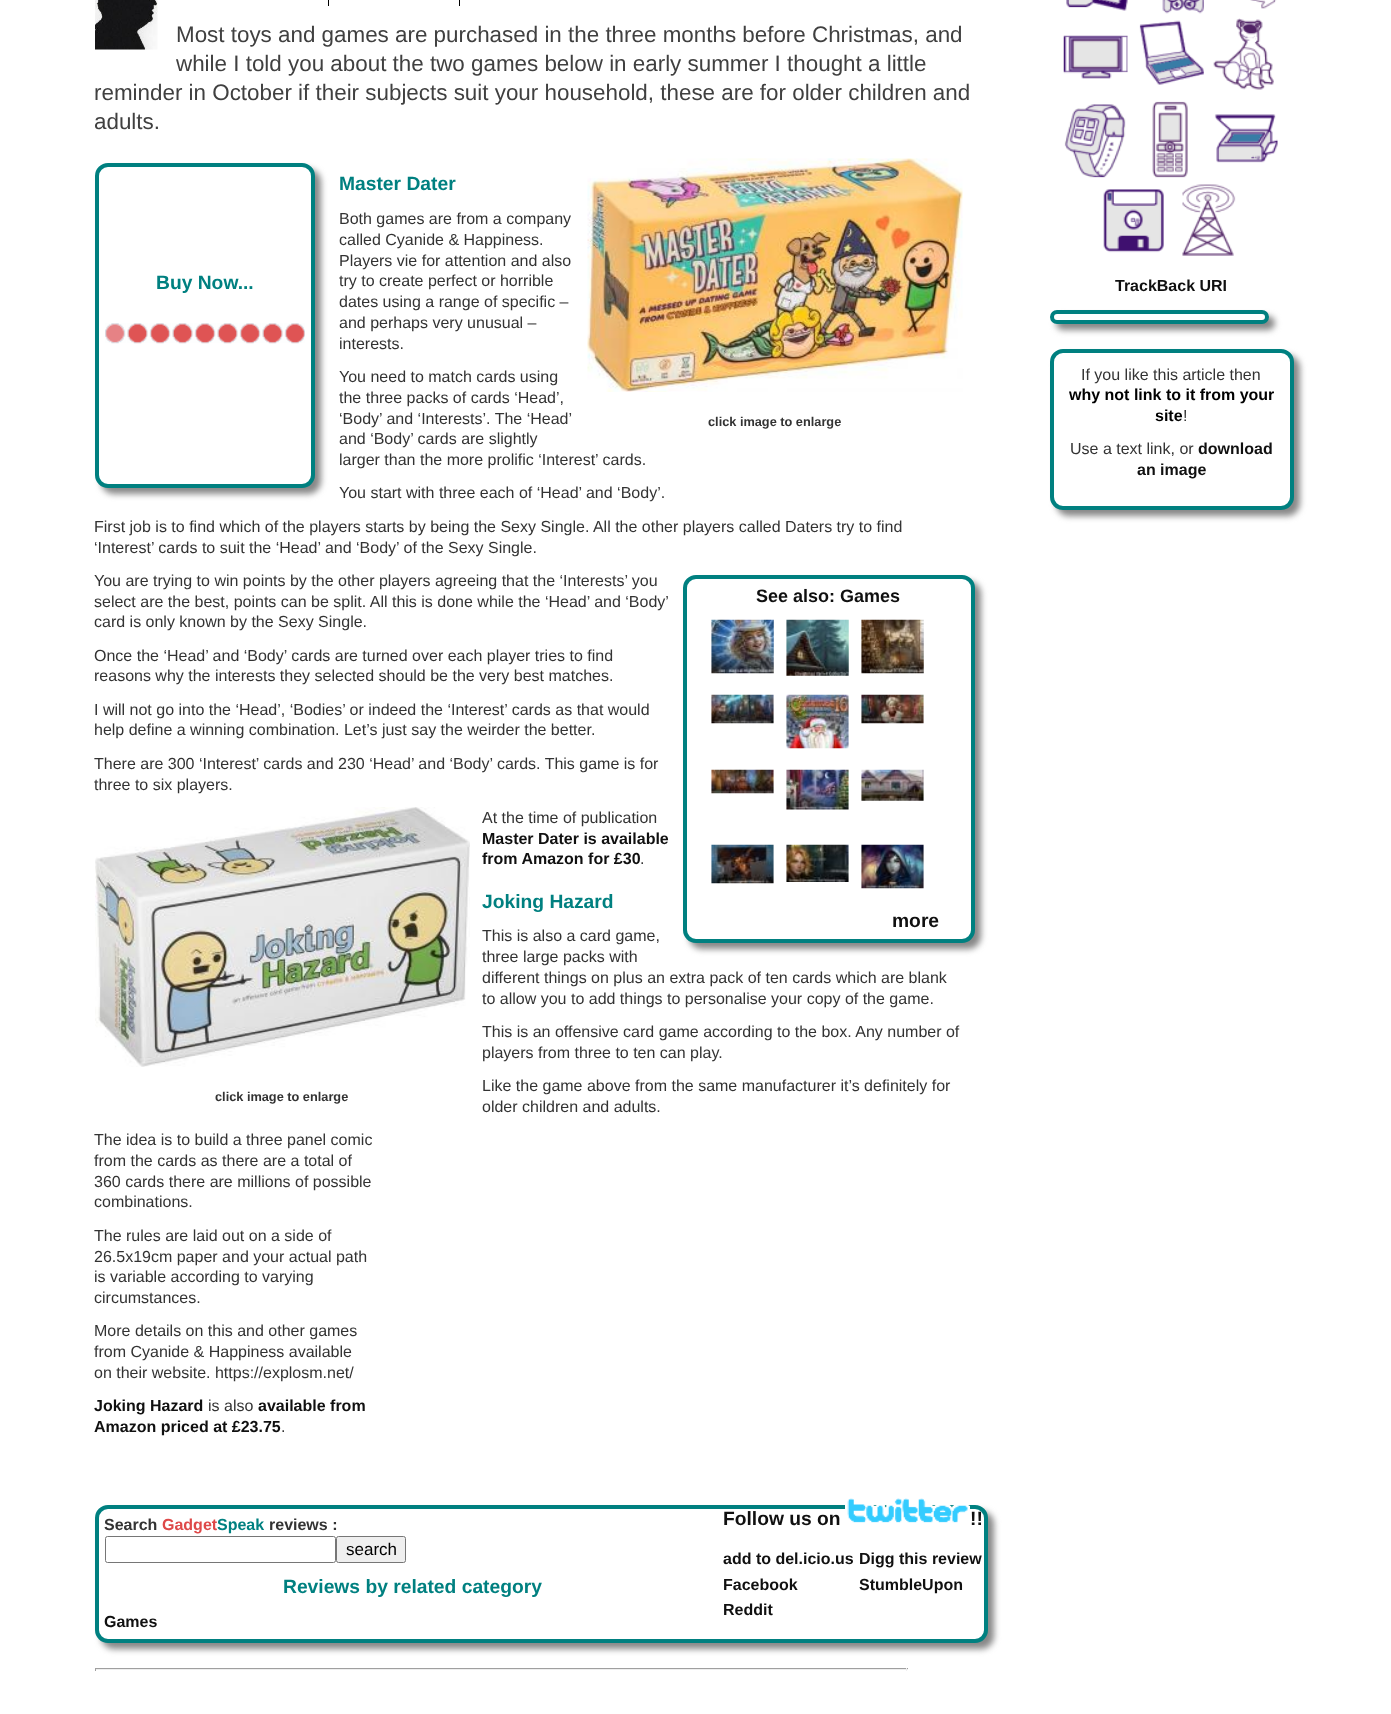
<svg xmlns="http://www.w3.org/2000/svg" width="1391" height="1714">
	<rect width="100%" height="100%" fill="#FFFFFF" />
	<image x="95" y="0" width="63" height="50" href="assets/img1.png" />
	<rect x="328" y="0" width="1" height="6" fill="#000000" />
	<rect x="459" y="0" width="1" height="6" fill="#000000" />
	<g font-family="Liberation Sans" font-size="22.4" fill="#404040">
		<text x="176" y="42">Most toys and games are purchased in the three months before Christmas, and</text>
		<text x="176" y="71">while I told you about the two games below in early summer I thought a little</text>
		<text x="94" y="100">reminder in October if their subjects suit your household, these are for older children and</text>
		<text x="94" y="129">adults.</text>
	</g>
	<text x="339" y="190" font-family="Liberation Sans" font-size="19.25" font-weight="700" fill="#008080">Master Dater</text>
	<rect x="101" y="169" width="220" height="325" rx="13" fill="#888888" filter="blur(3px)" />
	<rect x="97" y="165" width="216" height="321" rx="11" fill="#FFFFFF" stroke="#008080" stroke-width="4" />
	<text x="156" y="289" font-family="Liberation Sans" font-size="19.25" font-weight="700" fill="#008080">Buy Now...</text>
	<image x="105" y="323" width="200" height="21" href="assets/img2.png" />
	<g font-family="Liberation Sans" font-size="16" fill="#333333">
		<text x="339" y="224">Both games are from a company</text>
		<text x="339" y="245">called Cyanide &amp; Happiness.</text>
		<text x="339" y="266">Players vie for attention and also</text>
		<text x="339" y="286">try to create perfect or horrible</text>
		<text x="339" y="307">dates using a range of specific –</text>
		<text x="339" y="328">and perhaps very unusual –</text>
		<text x="339" y="349">interests.</text>
		<text x="339" y="382">You need to match cards using</text>
		<text x="339" y="403">the three packs of cards ‘Head’,</text>
		<text x="339" y="424">‘Body’ and ‘Interests’. The ‘Head’</text>
		<text x="339" y="444">and ‘Body’ cards are slightly</text>
		<text x="339" y="465">larger than the more prolific ‘Interest’ cards.</text>
	</g>
	<image x="587" y="158" width="376" height="234" href="assets/img3.png" />
	<text x="708" y="426" font-family="Liberation Sans" font-size="12.75" font-weight="700" fill="#333333">click image to enlarge</text>
	<g font-family="Liberation Sans" font-size="16" fill="#333333">
		<text x="339" y="498">You start with three each of ‘Head’ and ‘Body’.</text>
		<text x="94" y="532">First job is to find which of the players starts by being the Sexy Single. All the other players called Daters try to find</text>
		<text x="94" y="553">‘Interest’ cards to suit the ‘Head’ and ‘Body’ of the Sexy Single.</text>
		<text x="94" y="586">You are trying to win points by the other players agreeing that the ‘Interests’ you</text>
		<text x="94" y="607">select are the best, points can be split. All this is done while the ‘Head’ and ‘Body’</text>
		<text x="94" y="627">card is only known by the Sexy Single.</text>
	</g>
	<rect x="689" y="581" width="292" height="368" rx="13" fill="#888888" filter="blur(3px)" />
	<rect x="685" y="577" width="288" height="364" rx="11" fill="#FFFFFF" stroke="#008080" stroke-width="4" />
	<text x="756" y="602" font-family="Liberation Sans" font-size="18" font-weight="700" fill="#101010">See also: Games</text>
	<image x="711" y="619" width="63" height="55" href="assets/img4.png" />
	<image x="786" y="619" width="63" height="57" href="assets/img5.png" />
	<image x="861" y="619" width="63" height="55" href="assets/img6.png" />
	<image x="711" y="694" width="63" height="30" href="assets/img7.png" />
	<image x="786" y="694" width="63" height="55" href="assets/img8.png" />
	<image x="861" y="694" width="63" height="30" href="assets/img9.png" />
	<image x="711" y="769" width="63" height="25" href="assets/img10.png" />
	<image x="786" y="769" width="63" height="41" href="assets/img11.png" />
	<image x="861" y="769" width="63" height="32" href="assets/img12.png" />
	<image x="711" y="844" width="63" height="40" href="assets/img13.png" />
	<image x="786" y="844" width="63" height="38" href="assets/img14.png" />
	<image x="861" y="844" width="63" height="45" href="assets/img15.png" />
	<text x="892" y="927" font-family="Liberation Sans" font-size="19.25" font-weight="700" fill="#101010">more</text>
	<g font-family="Liberation Sans" font-size="16" fill="#333333">
		<text x="94" y="661">Once the ‘Head’ and ‘Body’ cards are turned over each player tries to find</text>
		<text x="94" y="681">reasons why the interests they selected should be the very best matches.</text>
		<text x="94" y="715">I will not go into the ‘Head’, ‘Bodies’ or indeed the ‘Interest’ cards as that would</text>
		<text x="94" y="735">help define a winning combination. Let’s just say the weirder the better.</text>
		<text x="94" y="769">There are 300 ‘Interest’ cards and 230 ‘Head’ and ‘Body’ cards. This game is for</text>
		<text x="94" y="790">three to six players.</text>
		<text x="482" y="823">At the time of publication</text>
	</g>
	<g font-family="Liberation Sans" font-size="16" font-weight="700" fill="#101010">
		<text x="482" y="844">Master Dater is available</text>
		<text x="482" y="864">from Amazon for £30</text>
	</g>
	<text x="640" y="864" font-family="Liberation Sans" font-size="16" fill="#333333">.</text>
	<text x="482" y="908" font-family="Liberation Sans" font-size="19.25" font-weight="700" fill="#008080">Joking Hazard</text>
	<g font-family="Liberation Sans" font-size="16" fill="#333333">
		<text x="482" y="941">This is also a card game,</text>
		<text x="482" y="962">three large packs with</text>
		<text x="482" y="983">different things on plus an extra pack of ten cards which are blank</text>
		<text x="482" y="1004">to allow you to add things to personalise your copy of the game.</text>
		<text x="482" y="1037">This is an offensive card game according to the box. Any number of</text>
		<text x="482" y="1058">players from three to ten can play.</text>
	</g>
	<image x="95" y="807" width="375" height="260" href="assets/img16.png" />
	<text x="215" y="1101" font-family="Liberation Sans" font-size="12.75" font-weight="700" fill="#333333">click image to enlarge</text>
	<g font-family="Liberation Sans" font-size="16" fill="#333333">
		<text x="482" y="1091">Like the game above from the same manufacturer it’s definitely for</text>
		<text x="482" y="1112">older children and adults.</text>
		<text x="94" y="1145">The idea is to build a three panel comic</text>
		<text x="94" y="1166">from the cards as there are a total of</text>
		<text x="94" y="1187">360 cards there are millions of possible</text>
		<text x="94" y="1207">combinations.</text>
		<text x="94" y="1241">The rules are laid out on a side of</text>
		<text x="94" y="1262">26.5x19cm paper and your actual path</text>
		<text x="94" y="1282">is variable according to varying</text>
		<text x="94" y="1303">circumstances.</text>
		<text x="94" y="1336">More details on this and other games</text>
		<text x="94" y="1357">from Cyanide &amp; Happiness available</text>
		<text x="94" y="1378">on their website. https://explosm.net/</text>
	</g>
	<text x="94" y="1411" font-family="Liberation Sans" font-size="16" font-weight="700" fill="#101010">Joking Hazard</text>
	<text x="208" y="1411" font-family="Liberation Sans" font-size="16" fill="#333333">is also</text>
	<g font-family="Liberation Sans" font-size="16" font-weight="700" fill="#101010">
		<text x="258" y="1411">available from</text>
		<text x="94" y="1432">Amazon priced at £23.75</text>
	</g>
	<text x="281" y="1432" font-family="Liberation Sans" font-size="16" fill="#333333">.</text>
	<rect x="101" y="1511" width="893" height="138" rx="13" fill="#888888" filter="blur(3px)" />
	<rect x="97" y="1507" width="889" height="134" rx="11" fill="#FFFFFF" stroke="#008080" stroke-width="4" />
	<text x="104" y="1530" font-family="Liberation Sans" font-size="16" font-weight="700" fill="#333333">Search</text>
	<text x="162" y="1530" font-family="Liberation Sans" font-size="16" font-weight="700" fill="#DE4949">Gadget</text>
	<text x="217" y="1530" font-family="Liberation Sans" font-size="16" font-weight="700" fill="#008080">Speak</text>
	<text x="269" y="1530" font-family="Liberation Sans" font-size="16" font-weight="700" fill="#333333">reviews :</text>
	<rect x="105.5" y="1536.5" width="230" height="26" rx="2" fill="none" stroke="#767676" />
	<rect x="336.5" y="1536.5" width="69" height="26" rx="2" fill="#EFEFEF" stroke="#767676" />
	<text x="346" y="1555" font-family="Liberation Sans" font-size="17" fill="#000000">search</text>
	<text x="283" y="1593" font-family="Liberation Sans" font-size="19.25" font-weight="700" fill="#008080">Reviews by related category</text>
	<text x="104" y="1627" font-family="Liberation Sans" font-size="16" font-weight="700" fill="#101010">Games</text>
	<text x="723" y="1525" font-family="Liberation Sans" font-size="19.25" font-weight="700" fill="#101010">Follow us on</text>
	<image x="845" y="1498" width="125" height="25" href="assets/img17.png" />
	<text x="970" y="1525" font-family="Liberation Sans" font-size="19.25" font-weight="700" fill="#101010">!!</text>
	<g font-family="Liberation Sans" font-size="16" font-weight="700" fill="#101010">
		<text x="723" y="1564">add to del.icio.us</text>
		<text x="859" y="1564">Digg this review</text>
		<text x="723" y="1590">Facebook</text>
		<text x="859" y="1590">StumbleUpon</text>
		<text x="723" y="1615">Reddit</text>
	</g>
	<rect x="95" y="1668" width="813" height="1" fill="#9F9F9F" />
	<rect x="906" y="1668" width="1" height="3" fill="#EEEEEE" />
	<rect x="95" y="1669" width="813" height="1" fill="#EEEEEE" />
	<rect x="95" y="1668" width="1" height="3" fill="#9F9F9F" />
	<image x="1066" y="0" width="62" height="11" href="assets/img18.png" />
	<image x="1162" y="0" width="42" height="14" href="assets/img19.png" />
	<image x="1250" y="0" width="27" height="9" href="assets/img20.png" />
	<image x="1063" y="35" width="65" height="44" href="assets/img21.png" />
	<image x="1139" y="20" width="65" height="65" href="assets/img22.png" />
	<image x="1213" y="18" width="61" height="72" href="assets/img23.png" />
	<image x="1064" y="104" width="62" height="74" href="assets/img24.png" />
	<image x="1152" y="101" width="36" height="77" href="assets/img25.png" />
	<image x="1214" y="114" width="64" height="49" href="assets/img26.png" />
	<image x="1103" y="189" width="61" height="64" href="assets/img27.png" />
	<image x="1182" y="184" width="54" height="72" href="assets/img28.png" />
	<text x="1115" y="291" font-family="Liberation Sans" font-size="16" font-weight="700" fill="#101010">TrackBack URI</text>
	<rect x="1056" y="316" width="219" height="14" rx="7" fill="#888888" filter="blur(3px)" />
	<rect x="1052" y="312" width="215" height="10" rx="5" fill="#FFFFFF" stroke="#008080" stroke-width="4" />
	<rect x="1056" y="355" width="244" height="161" rx="13" fill="#888888" filter="blur(3px)" />
	<rect x="1052" y="351" width="240" height="157" rx="11" fill="#FFFFFF" stroke="#008080" stroke-width="4" />
	<text x="1081" y="380" font-family="Liberation Sans" font-size="16" fill="#333333">If you like this article then</text>
	<g font-family="Liberation Sans" font-size="16" font-weight="700" fill="#000000">
		<text x="1069" y="400">why not link to it from your</text>
		<text x="1155" y="421">site</text>
	</g>
	<g font-family="Liberation Sans" font-size="16" fill="#333333">
		<text x="1183" y="421">!</text>
		<text x="1070" y="454">Use a text link, or</text>
	</g>
	<g font-family="Liberation Sans" font-size="16" font-weight="700" fill="#101010">
		<text x="1198" y="454">download</text>
		<text x="1137" y="475">an image</text>
	</g>
</svg>
